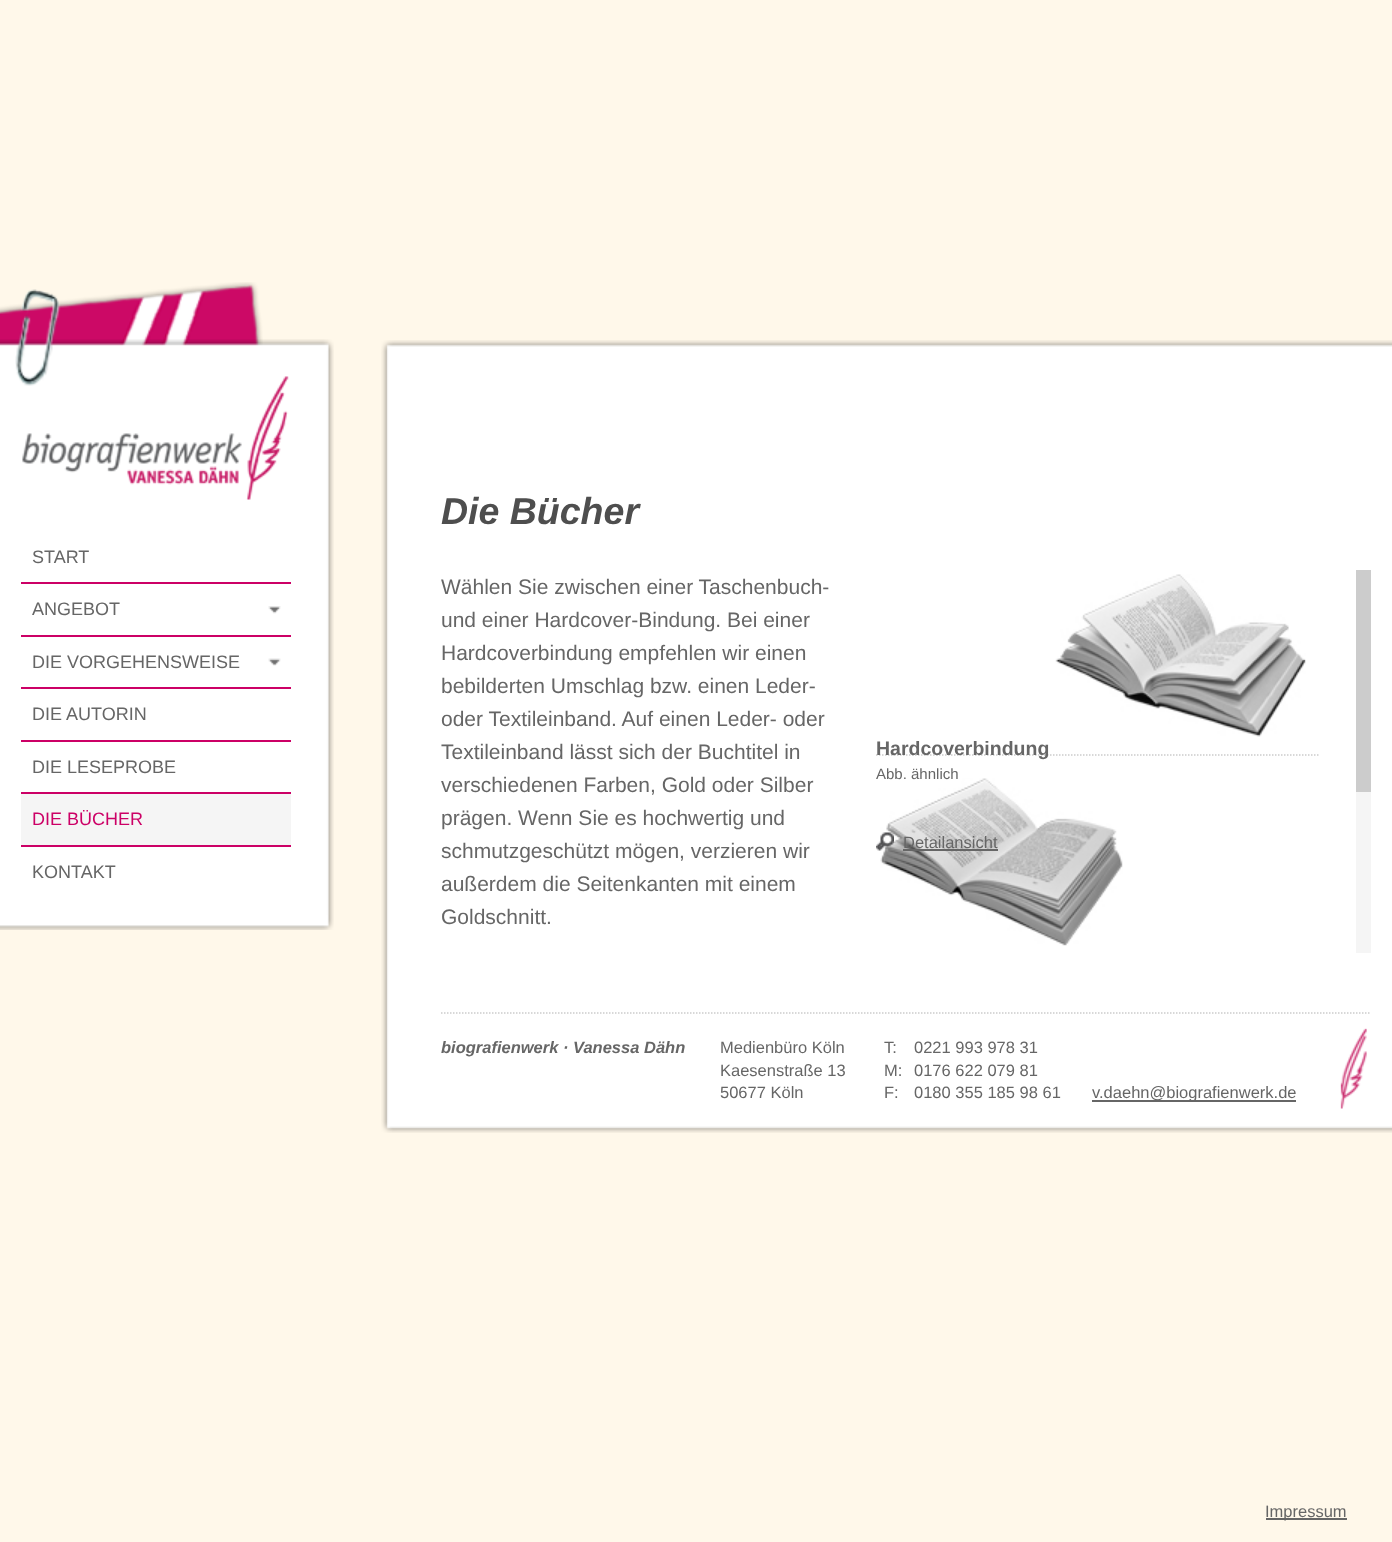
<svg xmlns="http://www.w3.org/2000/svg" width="1392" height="1542">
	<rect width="100%" height="100%" fill="#FFF8EA" />
	<image x="0" y="351" width="334" height="564" href="assets/img1.png" />
	<image x="0" y="282" width="263" height="64" href="assets/img2.png" />
	<image x="0" y="339" width="334" height="12" href="assets/img4.png" />
	<image x="22" y="376" width="267" height="124" href="assets/img5.png" />
	<image x="15" y="289" width="46" height="97" href="assets/img3.png" />
	<rect x="21" y="582" width="270" height="2" fill="#CC0066" />
	<text x="32" y="563" font-family="Liberation Sans" font-size="18" fill="#666666">START</text>
	<rect x="21" y="635" width="270" height="2" fill="#CC0066" />
	<image x="268" y="606" width="13" height="8" href="assets/img6.png" />
	<text x="32" y="615" font-family="Liberation Sans" font-size="18" fill="#666666">ANGEBOT</text>
	<rect x="21" y="687" width="270" height="2" fill="#CC0066" />
	<image x="268" y="658" width="13" height="8" href="assets/img7.png" />
	<text x="32" y="668" font-family="Liberation Sans" font-size="18" fill="#666666">DIE VORGEHENSWEISE</text>
	<rect x="21" y="740" width="270" height="2" fill="#CC0066" />
	<text x="32" y="720" font-family="Liberation Sans" font-size="18" fill="#666666">DIE AUTORIN</text>
	<rect x="21" y="792" width="270" height="2" fill="#CC0066" />
	<text x="32" y="773" font-family="Liberation Sans" font-size="18" fill="#666666">DIE LESEPROBE</text>
	<rect x="21" y="845" width="270" height="2" fill="#CC0066" />
	<rect x="21" y="794" width="270" height="51" fill="#F5F5F5" />
	<text x="32" y="825" font-family="Liberation Sans" font-size="18" fill="#CC0066">DIE BÜCHER</text>
	<text x="32" y="878" font-family="Liberation Sans" font-size="18" fill="#666666">KONTAKT</text>
	<image x="0" y="915" width="334" height="15" href="assets/img8.png" />
	<image x="381" y="340" width="1011" height="793" href="assets/img9.png" />
	<text x="441" y="524" font-family="Liberation Sans" font-size="37.5" font-weight="700" font-style="italic" fill="#4E4E4E">Die Bücher</text>
	<g font-family="Liberation Sans" font-size="21" fill="#666666">
		<text x="441" y="594">Wählen Sie zwischen einer Taschenbuch-</text>
		<text x="441" y="627">und einer Hardcover-Bindung. Bei einer</text>
		<text x="441" y="660">Hardcoverbindung empfehlen wir einen</text>
		<text x="441" y="693">bebilderten Umschlag bzw. einen Leder-</text>
		<text x="441" y="726">oder Textileinband. Auf einen Leder- oder</text>
		<text x="441" y="759">Textileinband lässt sich der Buchtitel in</text>
		<text x="441" y="792">verschiedenen Farben, Gold oder Silber</text>
		<text x="441" y="825">prägen. Wenn Sie es hochwertig und</text>
		<text x="441" y="858">schmutzgeschützt mögen, verzieren wir</text>
		<text x="441" y="891">außerdem die Seitenkanten mit einem</text>
		<text x="441" y="924">Goldschnitt.</text>
	</g>
	<path d="M876 755H1318.5" fill="none" stroke="#CCCCCC" stroke-width="1.5" stroke-dasharray="1.5 1.5" />
	<image x="1055" y="574" width="251" height="163" href="assets/img10.png" />
	<text x="876" y="755" font-family="Liberation Sans" font-size="19.5" font-weight="700" fill="#666666">Hardcoverbindung</text>
	<image x="880" y="778" width="243" height="168" href="assets/img12.png" />
	<text x="876" y="779" font-family="Liberation Sans" font-size="15" fill="#666666">Abb. ähnlich</text>
	<image x="876" y="832" width="18" height="19" href="assets/img11.png" />
	<text x="903" y="848" font-family="Liberation Sans" font-size="16.5" fill="#666666">Detailansicht</text>
	<rect x="903" y="849" width="95" height="2" fill="#666666" />
	<rect x="1356" y="792" width="15" height="161" fill="#F5F5F5" />
	<rect x="1356" y="570" width="15" height="222" fill="#CCCCCC" />
	<path d="M441 1013H1371" fill="none" stroke="#CCCCCC" stroke-width="1.5" stroke-dasharray="1.5 1.5" />
	<text x="441" y="1053" font-family="Liberation Sans" font-size="16.5" font-weight="700" font-style="italic" fill="#666666">biografienwerk · Vanessa Dähn</text>
	<g font-family="Liberation Sans" font-size="16.5" fill="#666666">
		<text x="720" y="1053">Medienbüro Köln</text>
		<text x="720" y="1076">Kaesenstraße 13</text>
		<text x="720" y="1098">50677 Köln</text>
		<text x="884" y="1053">T:</text>
		<text x="914" y="1053">0221 993 978 31</text>
		<text x="884" y="1076">M:</text>
		<text x="914" y="1076">0176 622 079 81</text>
		<text x="884" y="1098">F:</text>
		<text x="914" y="1098">0180 355 185 98 61</text>
	</g>
	<rect x="1092" y="1100" width="204" height="2" fill="#666666" />
	<text x="1092" y="1098" font-family="Liberation Sans" font-size="16.5" fill="#666666">v.daehn@biografienwerk.de</text>
	<image x="1340" y="1028" width="27" height="81" href="assets/img13.png" />
	<rect x="1266" y="1518" width="81" height="2" fill="#666666" />
	<text x="1265" y="1517" font-family="Liberation Sans" font-size="16.5" fill="#666666">Impressum</text>
</svg>
